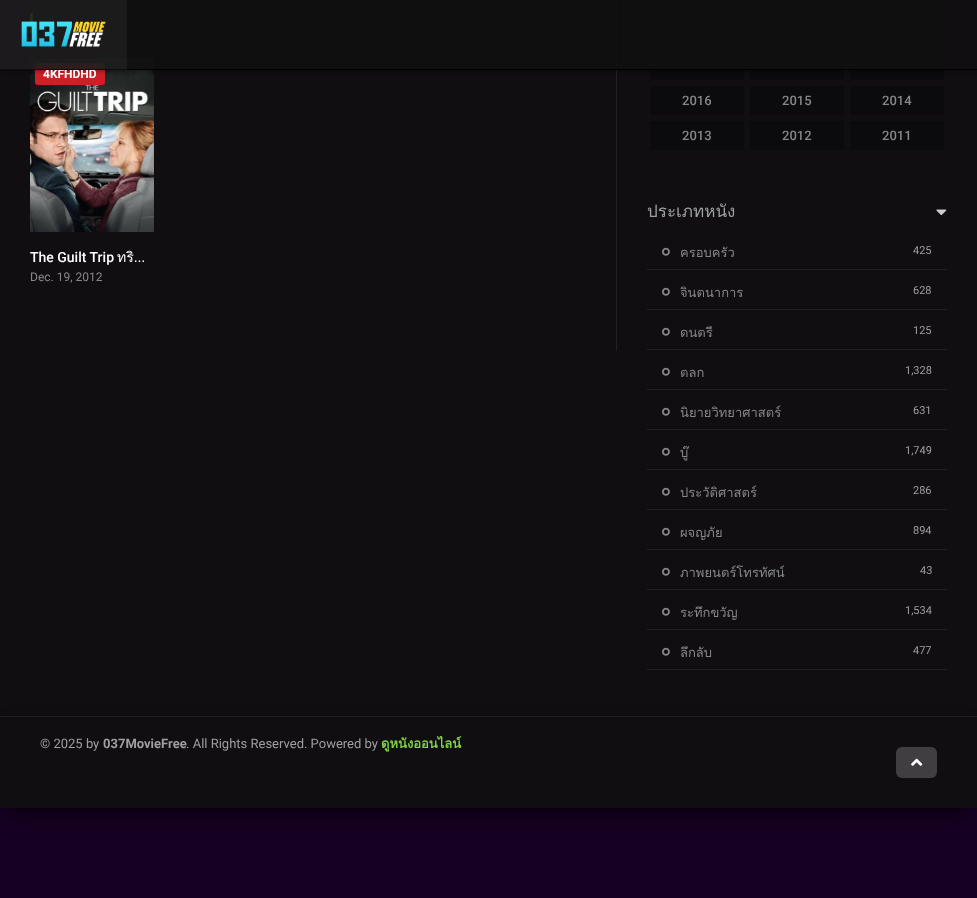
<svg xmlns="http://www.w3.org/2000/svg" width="977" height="898">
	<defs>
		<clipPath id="clip1"><rect x="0" y="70" width="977" height="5" /></clipPath>
	</defs>
	<rect width="100%" height="100%" fill="#160023" />
	<rect x="0" y="0" width="977" height="716" fill="#100E11" />
	<rect x="616" y="0" width="1" height="351" fill="#232124" />
	<rect x="30" y="13" width="3" height="20" fill="#81D742" />
	<image x="30" y="58" width="124" height="174" href="assets/img2.png" />
	<rect x="35" y="63" width="70" height="22" rx="3" fill="#CD2026" />
	<rect x="650" y="0" width="94" height="10" fill="#0B0A0C" />
	<rect x="750" y="0" width="94" height="10" fill="#0B0A0C" />
	<rect x="850" y="0" width="94" height="10" fill="#0B0A0C" />
	<rect x="650" y="16" width="94" height="29" fill="#0B0A0C" />
	<rect x="750" y="16" width="94" height="29" fill="#0B0A0C" />
	<rect x="850" y="16" width="94" height="29" fill="#0B0A0C" />
	<rect x="650" y="51" width="94" height="29" fill="#0B0A0C" />
	<rect x="750" y="51" width="94" height="29" fill="#0B0A0C" />
	<rect x="850" y="51" width="94" height="29" fill="#0B0A0C" />
	<g clip-path="url(#clip1)">
		<rect x="0" y="1" width="977" height="70" fill="#000000" fill-opacity="0.4" filter="blur(2.5px)" />
	</g>
	<rect x="30" y="0" width="914" height="69" fill="#0F0F0F" fill-opacity="0.9" />
	<text x="43" y="78" font-family="Roboto" font-size="12" font-weight="700" fill="#FFFFFF">4KFHDHD</text>
	<rect x="0" y="69" width="977" height="1" fill="#000000" />
	<rect x="0" y="0" width="127" height="70" fill="#FFFFFF" fill-opacity="0.05" />
	<image x="21" y="21" width="85" height="26" href="assets/img1.png" />
	<rect x="0" y="716" width="977" height="1" fill="#211F22" />
	<text x="30" y="262" font-family="Roboto" font-size="14" font-weight="500" fill="#FFFFFF">The Guilt Trip</text>
	<text x="117" y="262" font-family="Loma" font-size="14" fill="#FFFFFF">ทริ…</text>
	<text x="30" y="281" font-family="Roboto" font-size="12" fill="#888788">Dec. 19, 2012</text>
	<rect x="650" y="86" width="94" height="29" fill="#0B0A0C" />
	<text x="682" y="105" font-family="Roboto" font-size="13" font-weight="500" fill="#888788">2016</text>
	<rect x="750" y="86" width="94" height="29" fill="#0B0A0C" />
	<text x="782" y="105" font-family="Roboto" font-size="13" font-weight="500" fill="#888788">2015</text>
	<rect x="850" y="86" width="94" height="29" fill="#0B0A0C" />
	<text x="882" y="105" font-family="Roboto" font-size="13" font-weight="500" fill="#888788">2014</text>
	<rect x="650" y="121" width="94" height="29" fill="#0B0A0C" />
	<text x="682" y="140" font-family="Roboto" font-size="13" font-weight="500" fill="#888788">2013</text>
	<rect x="750" y="121" width="94" height="29" fill="#0B0A0C" />
	<text x="782" y="140" font-family="Roboto" font-size="13" font-weight="500" fill="#888788">2012</text>
	<rect x="850" y="121" width="94" height="29" fill="#0B0A0C" />
	<text x="882" y="140" font-family="Roboto" font-size="13" font-weight="500" fill="#888788">2011</text>
	<text x="647" y="217" font-family="Loma" font-size="17" fill="#9F9FA0">ประเภทหนัง</text>
	<image x="936" y="209" width="11" height="7" href="assets/img3.png" />
	<rect x="647" y="269" width="300" height="1" fill="#232124" />
	<image x="662" y="247" width="8" height="9" href="assets/img4.png" />
	<text x="680" y="257" font-family="Loma" font-size="13" fill="#888788">ครอบครัว</text>
	<text x="913" y="254" font-family="Roboto" font-size="11" fill="#9F9FA0">425</text>
	<rect x="647" y="309" width="300" height="1" fill="#232124" />
	<image x="662" y="287" width="8" height="9" href="assets/img4.png" />
	<text x="680" y="297" font-family="Loma" font-size="13" fill="#888788">จินตนาการ</text>
	<text x="913" y="294" font-family="Roboto" font-size="11" fill="#9F9FA0">628</text>
	<rect x="647" y="349" width="300" height="1" fill="#232124" />
	<image x="662" y="327" width="8" height="9" href="assets/img4.png" />
	<text x="680" y="337" font-family="Loma" font-size="13" fill="#888788">ดนตรี</text>
	<text x="913" y="334" font-family="Roboto" font-size="11" fill="#9F9FA0">125</text>
	<rect x="647" y="389" width="300" height="1" fill="#232124" />
	<image x="662" y="367" width="8" height="9" href="assets/img4.png" />
	<text x="680" y="377" font-family="Loma" font-size="13" fill="#888788">ตลก</text>
	<text x="905" y="374" font-family="Roboto" font-size="11" fill="#9F9FA0">1,328</text>
	<rect x="647" y="429" width="300" height="1" fill="#232124" />
	<image x="662" y="407" width="8" height="9" href="assets/img4.png" />
	<text x="680" y="417" font-family="Loma" font-size="13" fill="#888788">นิยายวิทยาศาสตร์</text>
	<text x="913" y="414" font-family="Roboto" font-size="11" fill="#9F9FA0">631</text>
	<rect x="647" y="469" width="300" height="1" fill="#232124" />
	<image x="662" y="447" width="8" height="9" href="assets/img4.png" />
	<text x="680" y="457" font-family="Loma" font-size="13" fill="#888788">บู๊</text>
	<text x="905" y="454" font-family="Roboto" font-size="11" fill="#9F9FA0">1,749</text>
	<rect x="647" y="509" width="300" height="1" fill="#232124" />
	<image x="662" y="487" width="8" height="9" href="assets/img4.png" />
	<text x="680" y="497" font-family="Loma" font-size="13" fill="#888788">ประวัติศาสตร์</text>
	<text x="913" y="494" font-family="Roboto" font-size="11" fill="#9F9FA0">286</text>
	<rect x="647" y="549" width="300" height="1" fill="#232124" />
	<image x="662" y="527" width="8" height="9" href="assets/img4.png" />
	<text x="680" y="537" font-family="Loma" font-size="13" fill="#888788">ผจญภัย</text>
	<text x="913" y="534" font-family="Roboto" font-size="11" fill="#9F9FA0">894</text>
	<rect x="647" y="589" width="300" height="1" fill="#232124" />
	<image x="662" y="567" width="8" height="9" href="assets/img4.png" />
	<text x="680" y="577" font-family="Loma" font-size="13" fill="#888788">ภาพยนตร์โทรทัศน์</text>
	<text x="920" y="574" font-family="Roboto" font-size="11" fill="#9F9FA0">43</text>
	<rect x="647" y="629" width="300" height="1" fill="#232124" />
	<image x="662" y="607" width="8" height="9" href="assets/img4.png" />
	<text x="680" y="617" font-family="Loma" font-size="13" fill="#888788">ระทึกขวัญ</text>
	<text x="905" y="614" font-family="Roboto" font-size="11" fill="#9F9FA0">1,534</text>
	<rect x="647" y="669" width="300" height="1" fill="#232124" />
	<image x="662" y="647" width="8" height="9" href="assets/img4.png" />
	<text x="680" y="657" font-family="Loma" font-size="13" fill="#888788">ลึกลับ</text>
	<text x="913" y="654" font-family="Roboto" font-size="11" fill="#9F9FA0">477</text>
	<rect x="7" y="734" width="963" height="77" fill="#000000" fill-opacity="0.7" filter="blur(12.5px)" />
	<rect x="0" y="717" width="977" height="91" fill="#100E11" />
	<text x="40" y="748" font-family="Roboto" font-size="13" fill="#9F9FA0">© 2025 by</text>
	<text x="103" y="748" font-family="Roboto" font-size="13" font-weight="700" fill="#9F9FA0">037MovieFree</text>
	<text x="186" y="748" font-family="Roboto" font-size="13" fill="#9F9FA0">. All Rights Reserved. Powered by</text>
	<text x="381" y="748" font-family="Loma" font-size="13" font-weight="700" fill="#81D742">ดูหนังออนไลน์</text>
	<rect x="896" y="747" width="41" height="31" rx="6" fill="#403E41" />
	<image x="911" y="758" width="12" height="8" href="assets/img5.png" />
</svg>
